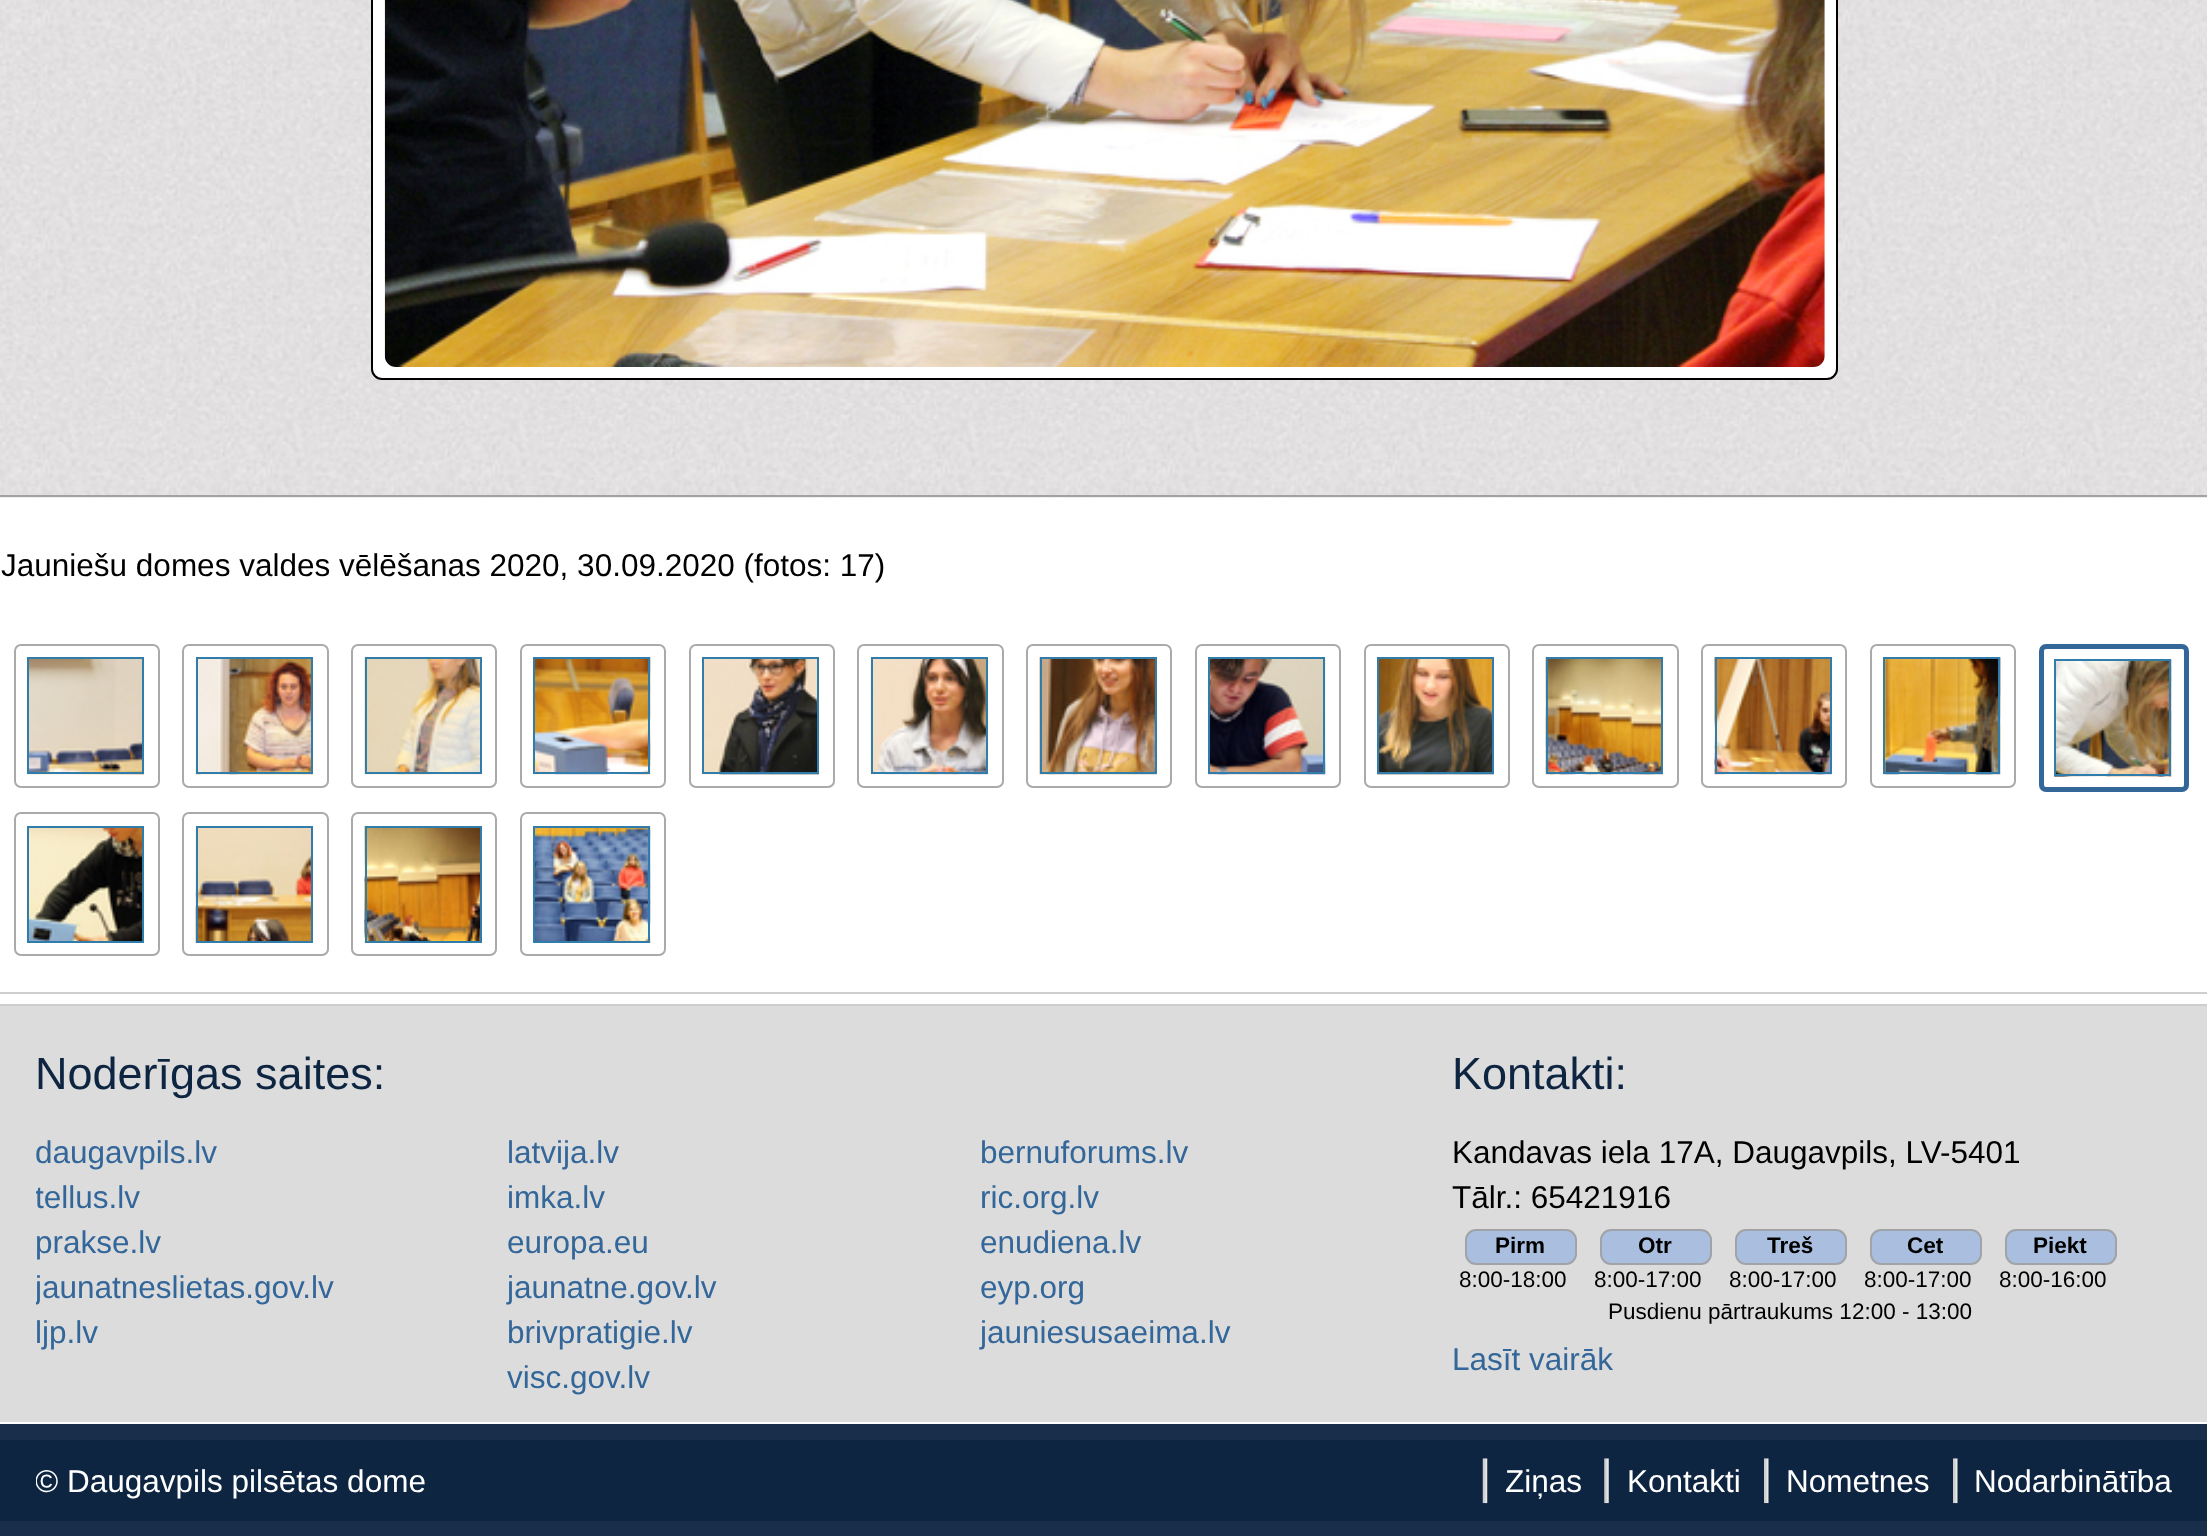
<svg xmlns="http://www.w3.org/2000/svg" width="2207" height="1536">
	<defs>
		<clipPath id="clip1"><rect x="36" y="1130" width="1418" height="270" /></clipPath>
		<clipPath id="clip2"><rect x="36" y="1458" width="2138" height="45" /></clipPath>
	</defs>
	<rect width="100%" height="100%" fill="#FFFFFF" />
	<image x="0" y="0" width="2207" height="498" href="assets/img1.png" />
	<rect x="0" y="495" width="2207" height="2" fill="#A4A1A1" />
	<rect x="372" y="-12" width="1465" height="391" rx="10" fill="#FFFFFF" stroke="#000000" stroke-width="2" />
	<image x="384" y="0" width="1441" height="367" href="assets/img2.png" />
	<text x="1" y="576" font-family="Liberation Sans" font-size="31.5" fill="#000000">Jauniešu domes valdes vēlēšanas 2020, 30.09.2020 (fotos: 17)</text>
	<rect x="15" y="645" width="144" height="142" rx="6" fill="none" stroke="#AAAAAA" stroke-width="2" />
	<image x="27" y="659" width="117" height="116" href="assets/img3.png" />
	<rect x="28" y="658" width="115" height="115" fill="none" stroke="#307DAC" stroke-width="2" />
	<rect x="183" y="645" width="145" height="142" rx="6" fill="none" stroke="#AAAAAA" stroke-width="2" />
	<image x="195" y="657" width="118" height="118" href="assets/img4.png" />
	<rect x="197" y="658" width="115" height="115" fill="none" stroke="#307DAC" stroke-width="2" />
	<rect x="352" y="645" width="144" height="142" rx="6" fill="none" stroke="#AAAAAA" stroke-width="2" />
	<image x="364" y="657" width="118" height="118" href="assets/img5.png" />
	<rect x="366" y="658" width="115" height="115" fill="none" stroke="#307DAC" stroke-width="2" />
	<rect x="521" y="645" width="144" height="142" rx="6" fill="none" stroke="#AAAAAA" stroke-width="2" />
	<image x="533" y="657" width="118" height="118" href="assets/img6.png" />
	<rect x="534" y="658" width="115" height="115" fill="none" stroke="#307DAC" stroke-width="2" />
	<rect x="690" y="645" width="144" height="142" rx="6" fill="none" stroke="#AAAAAA" stroke-width="2" />
	<image x="702" y="659" width="117" height="116" href="assets/img7.png" />
	<rect x="703" y="658" width="115" height="115" fill="none" stroke="#307DAC" stroke-width="2" />
	<rect x="858" y="645" width="145" height="142" rx="6" fill="none" stroke="#AAAAAA" stroke-width="2" />
	<image x="870" y="657" width="118" height="118" href="assets/img8.png" />
	<rect x="872" y="658" width="115" height="115" fill="none" stroke="#307DAC" stroke-width="2" />
	<rect x="1027" y="645" width="144" height="142" rx="6" fill="none" stroke="#AAAAAA" stroke-width="2" />
	<image x="1039" y="657" width="118" height="118" href="assets/img9.png" />
	<rect x="1041" y="658" width="115" height="115" fill="none" stroke="#307DAC" stroke-width="2" />
	<rect x="1196" y="645" width="144" height="142" rx="6" fill="none" stroke="#AAAAAA" stroke-width="2" />
	<image x="1208" y="657" width="118" height="118" href="assets/img10.png" />
	<rect x="1209" y="658" width="115" height="115" fill="none" stroke="#307DAC" stroke-width="2" />
	<rect x="1365" y="645" width="144" height="142" rx="6" fill="none" stroke="#AAAAAA" stroke-width="2" />
	<image x="1377" y="659" width="117" height="116" href="assets/img11.png" />
	<rect x="1378" y="658" width="115" height="115" fill="none" stroke="#307DAC" stroke-width="2" />
	<rect x="1533" y="645" width="145" height="142" rx="6" fill="none" stroke="#AAAAAA" stroke-width="2" />
	<image x="1545" y="657" width="118" height="118" href="assets/img12.png" />
	<rect x="1547" y="658" width="115" height="115" fill="none" stroke="#307DAC" stroke-width="2" />
	<rect x="1702" y="645" width="144" height="142" rx="6" fill="none" stroke="#AAAAAA" stroke-width="2" />
	<image x="1714" y="657" width="118" height="118" href="assets/img13.png" />
	<rect x="1716" y="658" width="115" height="115" fill="none" stroke="#307DAC" stroke-width="2" />
	<rect x="1871" y="645" width="144" height="142" rx="6" fill="none" stroke="#AAAAAA" stroke-width="2" />
	<image x="1883" y="657" width="118" height="118" href="assets/img14.png" />
	<rect x="1884" y="658" width="115" height="115" fill="none" stroke="#307DAC" stroke-width="2" />
	<rect x="2041.5" y="646.5" width="145" height="143" rx="4.5" fill="none" stroke="#336699" stroke-width="5" />
	<image x="2054" y="659" width="118" height="118" href="assets/img15.png" />
	<rect x="2055" y="660" width="115" height="115" fill="none" stroke="#307DAC" stroke-width="2" />
	<rect x="15" y="813" width="144" height="142" rx="6" fill="none" stroke="#AAAAAA" stroke-width="2" />
	<image x="29" y="828" width="113" height="113" href="assets/img16.png" />
	<rect x="28" y="827" width="115" height="115" fill="none" stroke="#307DAC" stroke-width="2" />
	<rect x="183" y="813" width="145" height="142" rx="6" fill="none" stroke="#AAAAAA" stroke-width="2" />
	<image x="195" y="826" width="116" height="117" href="assets/img17.png" />
	<rect x="197" y="827" width="115" height="115" fill="none" stroke="#307DAC" stroke-width="2" />
	<rect x="352" y="813" width="144" height="142" rx="6" fill="none" stroke="#AAAAAA" stroke-width="2" />
	<image x="364" y="826" width="116" height="117" href="assets/img18.png" />
	<rect x="366" y="827" width="115" height="115" fill="none" stroke="#307DAC" stroke-width="2" />
	<rect x="521" y="813" width="144" height="142" rx="6" fill="none" stroke="#AAAAAA" stroke-width="2" />
	<image x="535" y="826" width="116" height="117" href="assets/img19.png" />
	<rect x="534" y="827" width="115" height="115" fill="none" stroke="#307DAC" stroke-width="2" />
	<rect x="0" y="992" width="2207" height="2" fill="#CECECE" />
	<rect x="0" y="1004" width="2207" height="2" fill="#CECECE" />
	<rect x="0" y="1006" width="2207" height="416" fill="#DCDCDC" />
	<text x="35" y="1089" font-family="Liberation Sans" font-size="45" fill="#0E2542">Noderīgas saites:</text>
	<text x="35" y="1163" font-family="Liberation Sans" font-size="31.5" fill="#336699">daugavpils.lv</text>
	<g clip-path="url(#clip1)">
		<text x="35" y="1208" font-family="Liberation Sans" font-size="31.5" fill="#336699">tellus.lv</text>
	</g>
	<text x="35" y="1253" font-family="Liberation Sans" font-size="31.5" fill="#336699">prakse.lv</text>
	<g clip-path="url(#clip1)">
		<text x="35" y="1298" font-family="Liberation Sans" font-size="31.5" fill="#336699">jaunatneslietas.gov.lv</text>
	</g>
	<g font-family="Liberation Sans" font-size="31.5" fill="#336699">
		<text x="35" y="1343">ljp.lv</text>
		<text x="507" y="1163">latvija.lv</text>
		<text x="507" y="1208">imka.lv</text>
		<text x="507" y="1253">europa.eu</text>
		<text x="507" y="1298">jaunatne.gov.lv</text>
		<text x="507" y="1343">brivpratigie.lv</text>
		<text x="507" y="1388">visc.gov.lv</text>
		<text x="980" y="1163">bernuforums.lv</text>
		<text x="980" y="1208">ric.org.lv</text>
		<text x="980" y="1253">enudiena.lv</text>
		<text x="980" y="1298">eyp.org</text>
		<text x="980" y="1343">jauniesusaeima.lv</text>
	</g>
	<text x="1452" y="1089" font-family="Liberation Sans" font-size="45" fill="#0E2542">Kontakti:</text>
	<g font-family="Liberation Sans" font-size="31.5" fill="#000000">
		<text x="1452" y="1163">Kandavas iela 17A, Daugavpils, LV-5401</text>
		<text x="1452" y="1208">Tālr.: 65421916</text>
	</g>
	<rect x="1466" y="1230" width="110" height="34" rx="10" fill="#AABEDF" stroke="#A0A3A7" stroke-width="2" />
	<text x="1495" y="1253" font-family="Liberation Sans" font-size="22.5" font-weight="700" fill="#000000">Pirm</text>
	<rect x="1601" y="1230" width="110" height="34" rx="10" fill="#AABEDF" stroke="#A0A3A7" stroke-width="2" />
	<text x="1638" y="1253" font-family="Liberation Sans" font-size="22.5" font-weight="700" fill="#000000">Otr</text>
	<rect x="1736" y="1230" width="110" height="34" rx="10" fill="#AABEDF" stroke="#A0A3A7" stroke-width="2" />
	<text x="1767" y="1253" font-family="Liberation Sans" font-size="22.5" font-weight="700" fill="#000000">Treš</text>
	<rect x="1871" y="1230" width="110" height="34" rx="10" fill="#AABEDF" stroke="#A0A3A7" stroke-width="2" />
	<text x="1907" y="1253" font-family="Liberation Sans" font-size="22.5" font-weight="700" fill="#000000">Cet</text>
	<rect x="2006" y="1230" width="110" height="34" rx="10" fill="#AABEDF" stroke="#A0A3A7" stroke-width="2" />
	<text x="2033" y="1253" font-family="Liberation Sans" font-size="22.5" font-weight="700" fill="#000000">Piekt</text>
	<g font-family="Liberation Sans" font-size="22.5" fill="#000000">
		<text x="1459" y="1287">8:00-18:00</text>
		<text x="1594" y="1287">8:00-17:00</text>
		<text x="1729" y="1287">8:00-17:00</text>
		<text x="1864" y="1287">8:00-17:00</text>
		<text x="1999" y="1287">8:00-16:00</text>
		<text x="1608" y="1319">Pusdienu pārtraukums 12:00 - 13:00</text>
	</g>
	<text x="1452" y="1370" font-family="Liberation Sans" font-size="31.5" fill="#336699">Lasīt vairāk</text>
	<rect x="0" y="1440" width="2207" height="81" fill="#0E2542" />
	<rect x="0" y="1424" width="2207" height="16" fill="#182E4A" />
	<rect x="0" y="1521" width="2207" height="15" fill="#182E4A" />
	<g clip-path="url(#clip2)">
		<text x="35" y="1492" font-family="Liberation Sans" font-size="31.5" fill="#FFFFFF">© Daugavpils pilsētas dome</text>
	</g>
	<image x="1482" y="1458" width="6" height="46" href="assets/img20.png" />
	<text x="1505" y="1492" font-family="Liberation Sans" font-size="31.5" fill="#FFFFFF">Ziņas</text>
	<image x="1604" y="1458" width="5" height="46" href="assets/img21.png" />
	<text x="1627" y="1492" font-family="Liberation Sans" font-size="31.5" fill="#FFFFFF">Kontakti</text>
	<image x="1764" y="1458" width="5" height="46" href="assets/img22.png" />
	<text x="1786" y="1492" font-family="Liberation Sans" font-size="31.5" fill="#FFFFFF">Nometnes</text>
	<image x="1953" y="1458" width="5" height="46" href="assets/img22.png" />
	<text x="1974" y="1492" font-family="Liberation Sans" font-size="31.5" fill="#FFFFFF">Nodarbinātība</text>
</svg>
